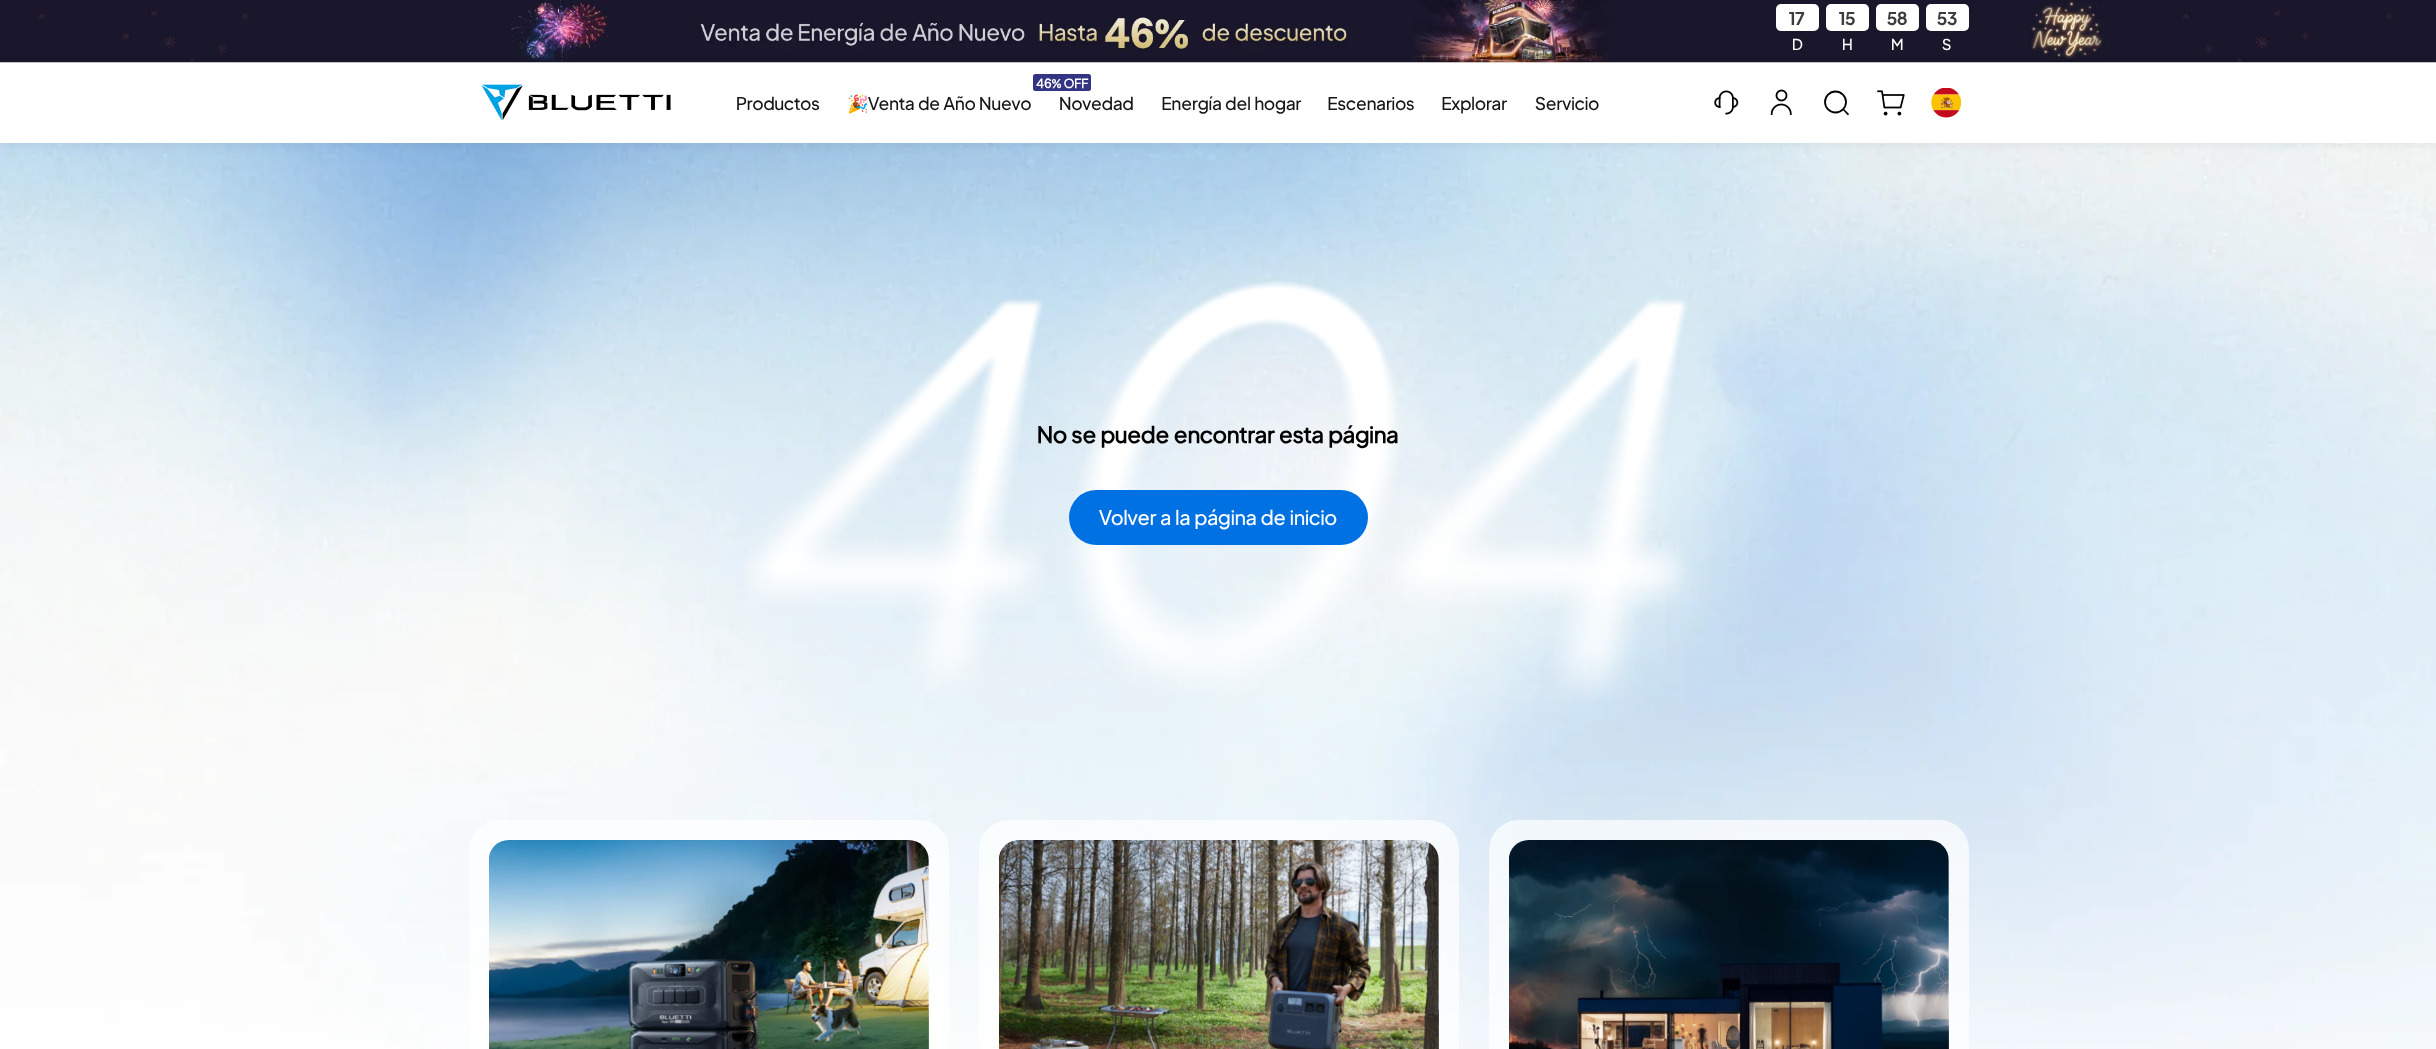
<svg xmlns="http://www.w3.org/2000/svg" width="2436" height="1049">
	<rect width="100%" height="100%" fill="#FFFFFF" />
	<image x="0" y="0" width="2436" height="63" href="assets/img1.png" />
	<rect x="1776" y="4" width="43" height="27" rx="5" fill="#FFFFFF" />
	<text x="1789" y="25" font-family="'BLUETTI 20'" font-size="17.5" font-weight="600" fill="#3D3D3D">17</text>
	<text x="1792" y="50" font-family="'BLUETTI 20'" font-size="15" fill="#FFFFFF">D</text>
	<rect x="1826" y="4" width="43" height="27" rx="5" fill="#FFFFFF" />
	<text x="1839" y="25" font-family="'BLUETTI 20'" font-size="17.5" font-weight="600" fill="#3D3D3D">15</text>
	<text x="1842" y="50" font-family="'BLUETTI 20'" font-size="15" fill="#FFFFFF">H</text>
	<rect x="1876" y="4" width="43" height="27" rx="5" fill="#FFFFFF" />
	<text x="1887" y="25" font-family="'BLUETTI 20'" font-size="17.5" font-weight="600" fill="#3D3D3D">58</text>
	<text x="1891" y="50" font-family="'BLUETTI 20'" font-size="15" fill="#FFFFFF">M</text>
	<rect x="1926" y="4" width="43" height="27" rx="5" fill="#FFFFFF" />
	<text x="1937" y="25" font-family="'BLUETTI 20'" font-size="17.5" font-weight="600" fill="#3D3D3D">53</text>
	<text x="1942" y="50" font-family="'BLUETTI 20'" font-size="15" fill="#FFFFFF">S</text>
	<image x="0" y="143" width="2436" height="906" href="assets/img7.png" />
	<rect x="0" y="65" width="2436" height="80" fill="#000000" fill-opacity="0.06" filter="blur(5px)" />
	<rect x="0" y="63" width="2436" height="80" fill="#FFFFFF" />
	<image x="481" y="84" width="190" height="37" href="assets/img2.png" />
	<text x="736" y="110" font-family="'BLUETTI 20'" font-size="17.5" fill="#161617">Productos</text>
	<rect x="1033" y="74" width="58" height="17" rx="2.5" fill="#343485" />
	<text x="1036" y="88" font-family="'BLUETTI 20'" font-size="12.5" font-weight="500" fill="#FFFFFF">46% OFF</text>
	<text x="847" y="110" font-family="Noto Color Emoji" font-size="17.5" fill="#161617">🎉</text>
	<g font-family="'BLUETTI 20'" font-size="17.5" fill="#161617">
		<text x="868" y="110">Venta de Año Nuevo</text>
		<text x="1059" y="110">Novedad</text>
		<text x="1162" y="110">Energía del hogar</text>
		<text x="1328" y="110">Escenarios</text>
		<text x="1442" y="110">Explorar</text>
		<text x="1535" y="110">Servicio</text>
	</g>
	<image x="1714" y="90" width="25" height="25" href="assets/img3.png" />
	<image x="1770" y="89" width="22" height="26" href="assets/img4.png" />
	<circle cx="1835.5" cy="102" r="10.5" fill="none" stroke="#000000" stroke-width="1.8" />
	<path d="M1842.5 109.5L1848 115.5L1849 114L1843.5 108.5Z" fill="#000000" fill-rule="evenodd" />
	<image x="1877" y="90" width="28" height="26" href="assets/img5.png" />
	<image x="1931" y="88" width="30" height="30" href="assets/img6.png" />
	<image x="745" y="281" width="944" height="419" href="assets/img8.png" />
	<text x="1037" y="443" font-family="'BLUETTI 20'" font-size="22.5" font-weight="500" fill="#000000">No se puede encontrar esta página</text>
	<rect x="1069" y="490" width="299" height="55" rx="27.5" fill="#0071E3" />
	<text x="1099" y="525" font-family="'BLUETTI 20'" font-size="20" fill="#FFFFFF">Volver a la página de inicio</text>
	<rect x="469" y="820" width="480" height="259" rx="30" fill="#FFFFFF" fill-opacity="0.7" />
	<image x="489" y="840" width="440" height="209" href="assets/img9.png" />
	<rect x="979" y="820" width="480" height="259" rx="30" fill="#FFFFFF" fill-opacity="0.7" />
	<image x="999" y="840" width="440" height="209" href="assets/img10.png" />
	<rect x="1489" y="820" width="480" height="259" rx="30" fill="#FFFFFF" fill-opacity="0.7" />
	<image x="1509" y="840" width="440" height="209" href="assets/img11.png" />
</svg>
